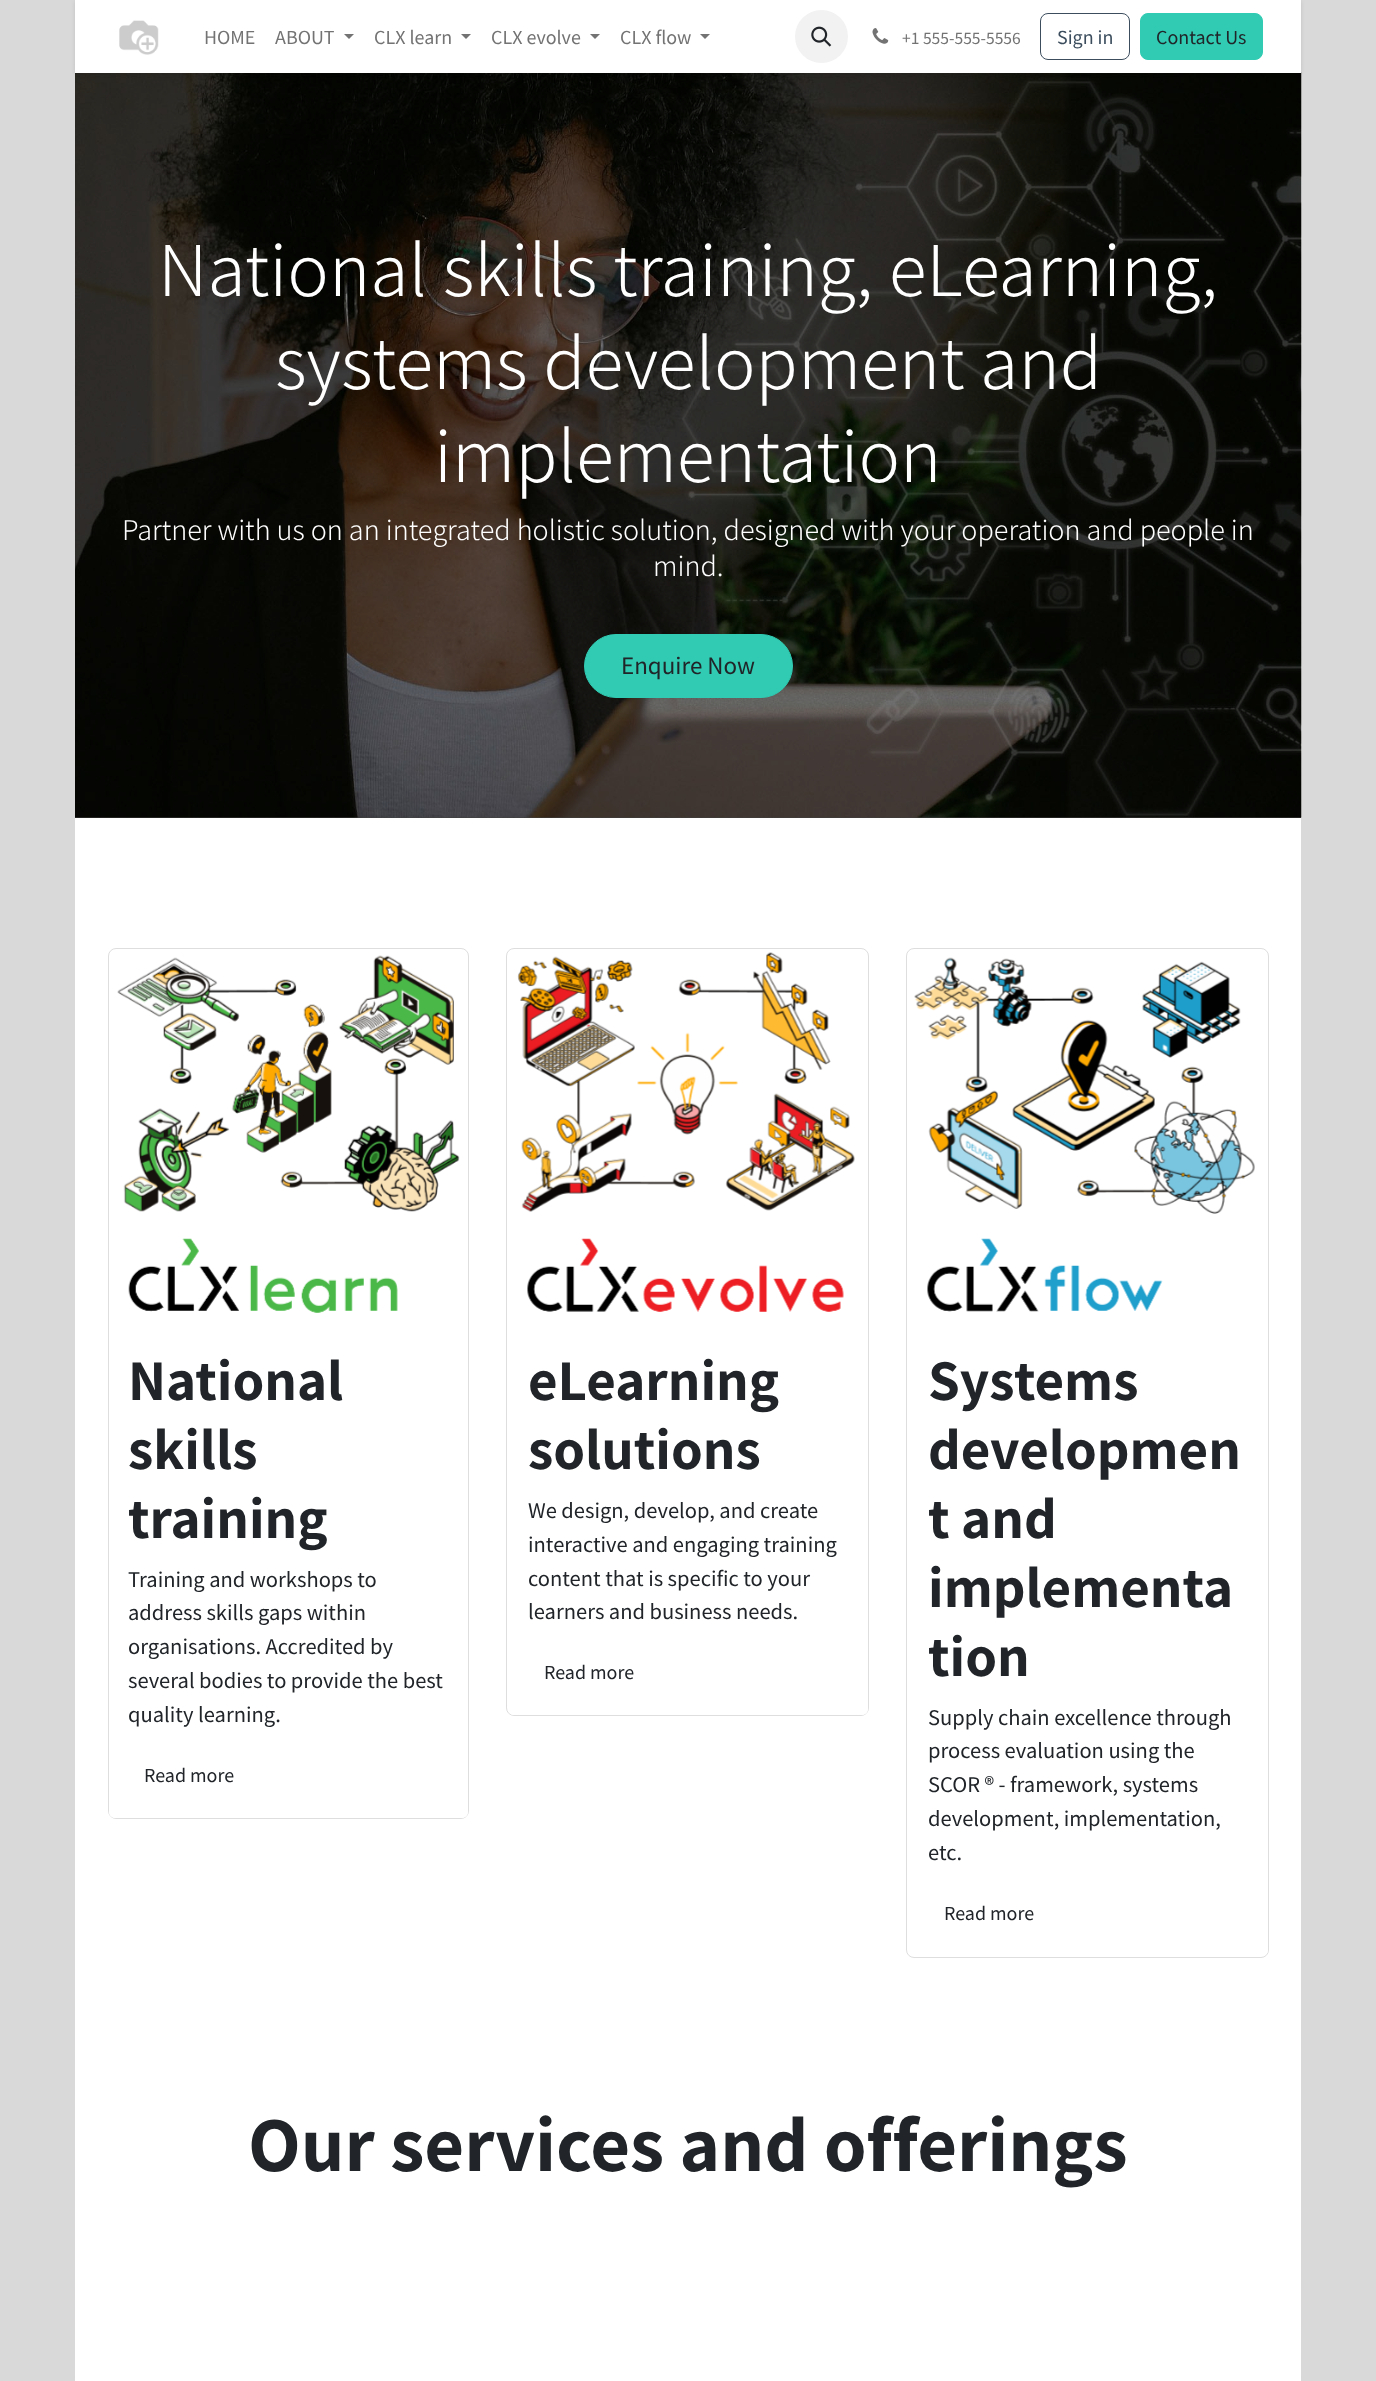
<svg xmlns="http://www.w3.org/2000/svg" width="1376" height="2381">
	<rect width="100%" height="100%" fill="#D9D9D9" />
	<rect x="75" y="817" width="1226" height="1" fill="#404040" />
	<image x="75" y="72" width="1227" height="746" href="assets/img4.png" />
	<rect x="75" y="1" width="1226" height="73" fill="#000000" fill-opacity="0.1" filter="blur(2px)" />
	<rect x="75" y="0" width="1226" height="73" fill="#FFFFFF" />
	<image x="119" y="20" width="40" height="35" href="assets/img1.png" />
	<g font-family="Source Sans Pro" font-size="20" fill="#737373">
		<text x="204" y="44">HOME</text>
		<text x="275" y="44">ABOUT</text>
	</g>
	<path d="M344 34H354L349 39Z" fill="#737373" />
	<text x="374" y="44" font-family="Source Sans Pro" font-size="20" fill="#737373">CLX learn</text>
	<path d="M461 34H471L466 39Z" fill="#737373" />
	<text x="491" y="44" font-family="Source Sans Pro" font-size="20" fill="#737373">CLX evolve</text>
	<path d="M590 34H600L595 39Z" fill="#737373" />
	<text x="620" y="44" font-family="Source Sans Pro" font-size="20" fill="#737373">CLX flow</text>
	<path d="M700 34H710L705 39Z" fill="#737373" />
	<circle cx="821.5" cy="36.5" r="26.5" fill="#F2F2F2" />
	<image x="811" y="26" width="21" height="21" href="assets/img2.png" />
	<image x="872" y="28" width="17" height="16" href="assets/img3.png" />
	<text x="902" y="44" font-family="Source Sans Pro" font-size="17.5" fill="#737373">+1 555-555-5556</text>
	<rect x="1040.5" y="13.5" width="89" height="46" rx="7.5" fill="none" stroke="#3C4E5E" />
	<text x="1057" y="44" font-family="Source Sans Pro" font-size="20" fill="#3C4E5E">Sign in</text>
	<rect x="1140.5" y="13.5" width="122" height="46" rx="7.5" fill="#30CBB2" stroke="#30CBB2" />
	<text x="1156" y="44" font-family="Source Sans Pro" font-size="20" fill="#212529">Contact Us</text>
	<rect x="75" y="818" width="1226" height="1563" fill="#FFFFFF" />
	<g font-family="Assistant" font-size="77.5" font-weight="300" fill="#FFFFFF">
		<text x="158" y="296">National skills training, eLearning,</text>
		<text x="275" y="389">systems development and</text>
		<text x="434" y="482">implementation</text>
	</g>
	<g font-family="Assistant" font-size="30" font-weight="300" fill="#FFFFFF">
		<text x="122" y="540">Partner with us on an integrated holistic solution, designed with your operation and people in</text>
		<text x="653" y="576">mind.</text>
	</g>
	<rect x="584.5" y="634.5" width="208" height="63" rx="31.5" fill="#30CBB2" stroke="#30CBB2" />
	<text x="621" y="674" font-family="Source Sans Pro" font-size="25" fill="#212529">Enquire Now</text>
	<rect x="108.5" y="948.5" width="360" height="870" rx="7.5" fill="none" stroke="#DEDEDF" />
	<image x="117" y="955" width="343" height="257" href="assets/img5.png" />
	<path d="M109 1219H468V1812C468 1815.5 465.5 1818 462 1818H115C111.5 1818 109 1815.5 109 1812Z" fill="#FFFFFF" fill-opacity="0.9" />
	<image x="128" y="1238" width="270" height="75" href="assets/img6.png" />
	<g font-family="Assistant" font-size="57.5" font-weight="700" fill="#212529">
		<text x="128" y="1400">National</text>
		<text x="128" y="1469">skills</text>
		<text x="128" y="1538">training</text>
	</g>
	<g font-family="Source Sans Pro" font-size="22.5" fill="#212529">
		<text x="128" y="1587">Training and workshops to</text>
		<text x="128" y="1620">address skills gaps within</text>
		<text x="128" y="1654">organisations. Accredited by</text>
		<text x="128" y="1688">several bodies to provide the best</text>
		<text x="128" y="1722">quality learning.</text>
	</g>
	<text x="144" y="1782" font-family="Source Sans Pro" font-size="20" fill="#212529">Read more</text>
	<rect x="506.5" y="948.5" width="362" height="767" rx="7.5" fill="none" stroke="#DEDEDF" />
	<image x="517" y="952" width="338" height="260" href="assets/img7.png" />
	<path d="M508 1219H868V1709C868 1712.5 865.5 1715 862 1715H514C510.5 1715 508 1712.5 508 1709Z" fill="#FFFFFF" fill-opacity="0.9" />
	<image x="527" y="1238" width="317" height="74" href="assets/img8.png" />
	<g font-family="Assistant" font-size="57.5" font-weight="700" fill="#212529">
		<text x="528" y="1400">eLearning</text>
		<text x="528" y="1469">solutions</text>
	</g>
	<g font-family="Source Sans Pro" font-size="22.5" fill="#212529">
		<text x="528" y="1518">We design, develop, and create</text>
		<text x="528" y="1552">interactive and engaging training</text>
		<text x="528" y="1586">content that is specific to your</text>
		<text x="528" y="1619">learners and business needs.</text>
	</g>
	<text x="544" y="1679" font-family="Source Sans Pro" font-size="20" fill="#212529">Read more</text>
	<rect x="906.5" y="948.5" width="362" height="1009" rx="7.5" fill="none" stroke="#DEDEDF" />
	<image x="914" y="957" width="341" height="257" href="assets/img9.png" />
	<path d="M908 1219H1268V1950C1268 1953.5 1265.5 1956 1262 1956H914C910.5 1956 908 1953.5 908 1950Z" fill="#FFFFFF" fill-opacity="0.9" />
	<image x="927" y="1238" width="236" height="74" href="assets/img10.png" />
	<g font-family="Assistant" font-size="57.5" font-weight="700" fill="#212529">
		<text x="928" y="1400">Systems</text>
		<text x="928" y="1469">developmen</text>
		<text x="928" y="1538">t and</text>
		<text x="928" y="1607">implementa</text>
		<text x="928" y="1676">tion</text>
	</g>
	<g font-family="Source Sans Pro" font-size="22.5" fill="#212529">
		<text x="928" y="1725">Supply chain excellence through</text>
		<text x="928" y="1758">process evaluation using the</text>
		<text x="928" y="1792">SCOR ® - framework, systems</text>
		<text x="928" y="1826">development, implementation,</text>
		<text x="928" y="1860">etc.</text>
	</g>
	<text x="944" y="1920" font-family="Source Sans Pro" font-size="20" fill="#212529">Read more</text>
	<text x="248" y="2171" font-family="Assistant" font-size="77.5" font-weight="700" fill="#212529">Our services and offerings</text>
</svg>
